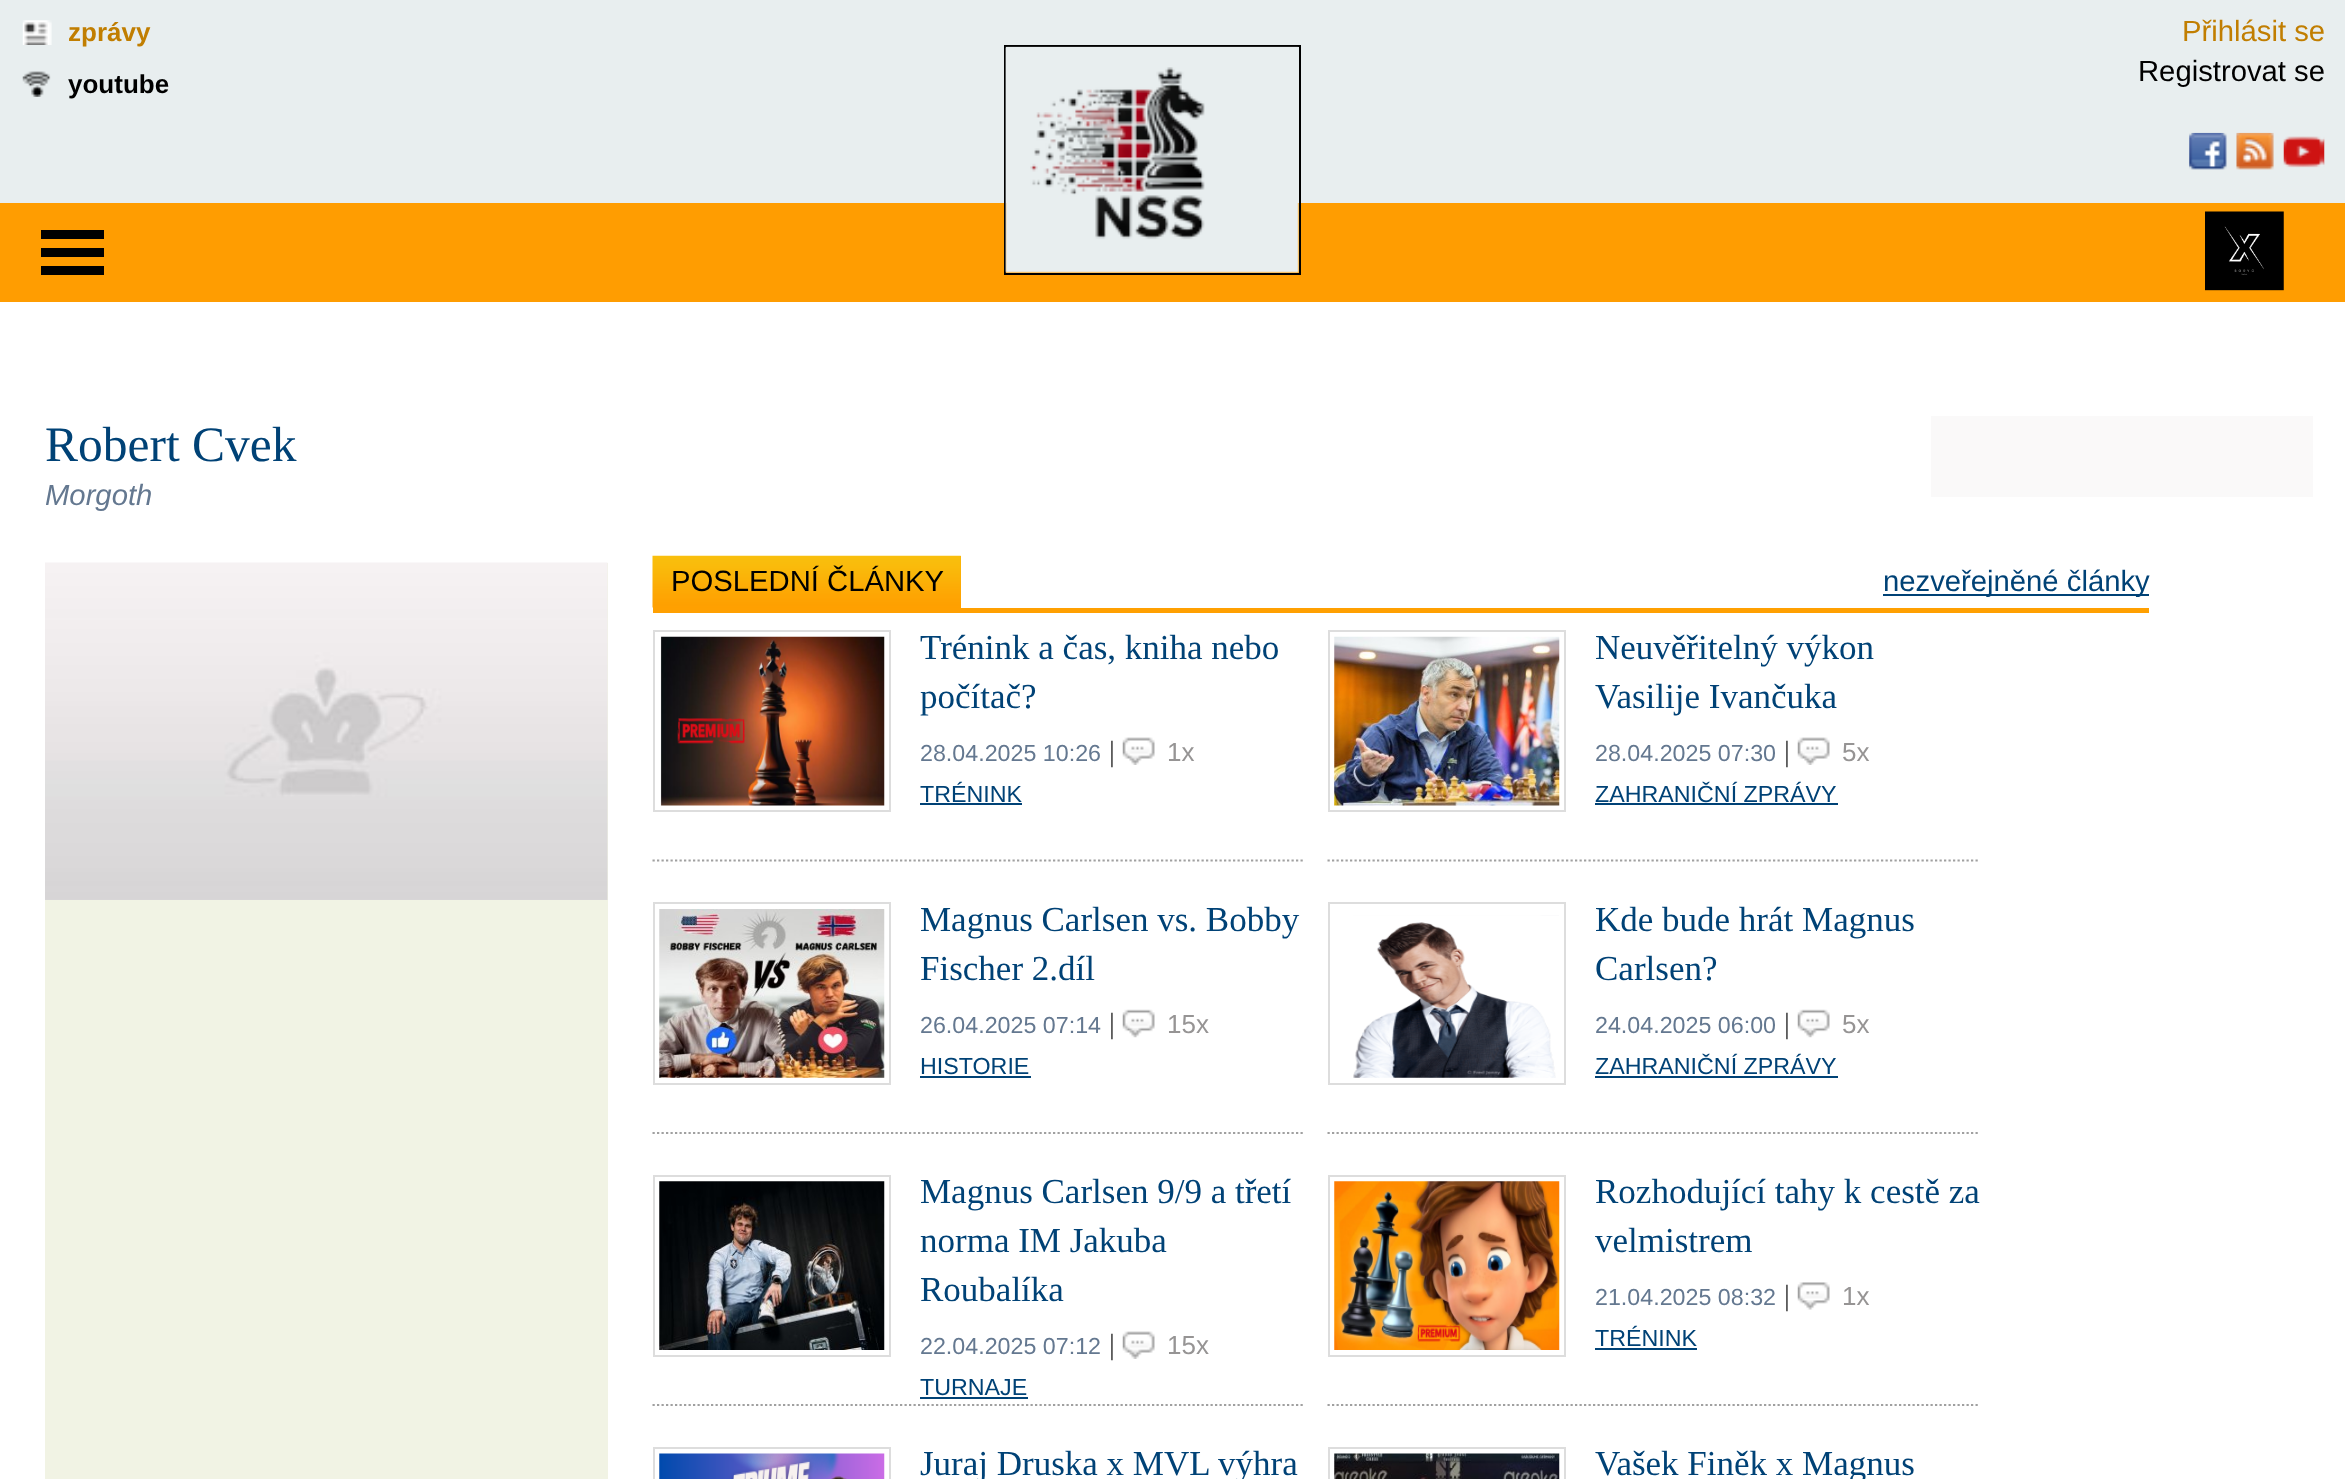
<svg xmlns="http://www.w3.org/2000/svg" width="2345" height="1479">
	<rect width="100%" height="100%" fill="#E8EEEF" />
	<image x="22" y="20" width="30" height="25" href="assets/img1.png" />
	<text x="68" y="41" font-family="Liberation Sans" font-size="26" font-weight="700" fill="#C17E01">zprávy</text>
	<image x="22" y="71" width="29" height="26" href="assets/img2.png" />
	<text x="68" y="93" font-family="Liberation Sans" font-size="26" font-weight="700" fill="#000000">youtube</text>
	<text x="2182" y="41" font-family="Liberation Sans" font-size="29.25" fill="#C17E01">Přihlásit se</text>
	<text x="2138" y="81" font-family="Liberation Sans" font-size="29.25" fill="#000000">Registrovat se</text>
	<image x="2189" y="132" width="38" height="38" href="assets/img3.png" />
	<image x="2236" y="132" width="38" height="38" href="assets/img4.png" />
	<image x="2283" y="136" width="42" height="32" href="assets/img5.png" />
	<rect x="0" y="203" width="2345" height="99" fill="#FF9D01" />
	<rect x="1005" y="46" width="295" height="228" fill="none" stroke="#000000" stroke-width="2" />
	<image x="1005" y="46" width="294" height="227" href="assets/img6.png" />
	<rect x="41" y="230" width="63" height="9" fill="#000000" />
	<rect x="41" y="248" width="63" height="9" fill="#000000" />
	<rect x="41" y="266" width="63" height="9" fill="#000000" />
	<image x="2205" y="211" width="79" height="80" href="assets/img7.png" />
	<rect x="0" y="302" width="2345" height="1177" fill="#FFFFFF" />
	<text x="45" y="461" font-family="Liberation Serif" font-size="49.5" fill="#004276">Robert Cvek</text>
	<text x="45" y="505" font-family="Liberation Sans" font-size="29.25" font-style="italic" fill="#647890">Morgoth</text>
	<rect x="1931" y="416" width="382" height="81" fill="#FAF9F9" />
	<rect x="45" y="563" width="563" height="916" fill="#F1F3E4" />
	<image x="45" y="562" width="563" height="338" href="assets/img8.png" />
	<rect x="653" y="608" width="1496" height="5" fill="#FFA001" />
	<rect x="653" y="556" width="308" height="52" fill="#FFA001" />
	<image x="652" y="555" width="309" height="53" href="assets/img9.png" />
	<text x="671" y="591" font-family="Liberation Sans" font-size="29.25" fill="#000000">POSLEDNÍ ČLÁNKY</text>
	<rect x="1883" y="594" width="266" height="2" fill="#004276" />
	<text x="1883" y="591" font-family="Liberation Sans" font-size="29.25" fill="#004276">nezveřejněné články</text>
	<path d="M652.5 860.5H1305" fill="none" stroke="#A0A0A0" stroke-width="2.2" stroke-dasharray="2.25 2.25" />
	<rect x="654" y="631" width="236" height="180" fill="none" stroke="#DDDDDD" stroke-width="2" />
	<image x="660" y="636" width="225" height="170" href="assets/img10.png" />
	<g font-family="Liberation Serif" font-size="35" fill="#004276">
		<text x="920" y="659">Trénink a čas, kniha nebo</text>
		<text x="920" y="708">počítač?</text>
	</g>
	<text x="920" y="761" font-family="Liberation Sans" font-size="23.25" fill="#647890">28.04.2025 10:26</text>
	<text x="1109" y="761" font-family="Liberation Serif" font-size="29.25" fill="#333333">|</text>
	<image x="1122" y="737" width="33" height="28" href="assets/img11.png" />
	<text x="1167" y="761" font-family="Liberation Sans" font-size="26" fill="#969494">1x</text>
	<text x="920" y="802" font-family="Liberation Sans" font-size="23.25" fill="#004276">TRÉNINK</text>
	<rect x="920" y="803" width="102" height="2" fill="#004276" />
	<path d="M1327.5 860.5H1980" fill="none" stroke="#A0A0A0" stroke-width="2.2" stroke-dasharray="2.25 2.25" />
	<rect x="1329" y="631" width="236" height="180" fill="none" stroke="#DDDDDD" stroke-width="2" />
	<image x="1334" y="636" width="226" height="170" href="assets/img12.png" />
	<g font-family="Liberation Serif" font-size="35" fill="#004276">
		<text x="1595" y="659">Neuvěřitelný výkon</text>
		<text x="1595" y="708">Vasilije Ivančuka</text>
	</g>
	<text x="1595" y="761" font-family="Liberation Sans" font-size="23.25" fill="#647890">28.04.2025 07:30</text>
	<text x="1784" y="761" font-family="Liberation Serif" font-size="29.25" fill="#333333">|</text>
	<image x="1797" y="737" width="33" height="28" href="assets/img13.png" />
	<text x="1842" y="761" font-family="Liberation Sans" font-size="26" fill="#969494">5x</text>
	<text x="1595" y="802" font-family="Liberation Sans" font-size="23.25" fill="#004276">ZAHRANIČNÍ ZPRÁVY</text>
	<rect x="1595" y="803" width="243" height="2" fill="#004276" />
	<path d="M652.5 1133H1305" fill="none" stroke="#A0A0A0" stroke-width="2.2" stroke-dasharray="2.25 2.25" />
	<rect x="654" y="903" width="236" height="181" fill="none" stroke="#DDDDDD" stroke-width="2" />
	<image x="659" y="909" width="226" height="169" href="assets/img14.png" />
	<g font-family="Liberation Serif" font-size="35" fill="#004276">
		<text x="920" y="931">Magnus Carlsen vs. Bobby</text>
		<text x="920" y="980">Fischer 2.díl</text>
	</g>
	<text x="920" y="1033" font-family="Liberation Sans" font-size="23.25" fill="#647890">26.04.2025 07:14</text>
	<text x="1109" y="1033" font-family="Liberation Serif" font-size="29.25" fill="#333333">|</text>
	<image x="1122" y="1009" width="33" height="29" href="assets/img15.png" />
	<text x="1167" y="1033" font-family="Liberation Sans" font-size="26" fill="#969494">15x</text>
	<text x="920" y="1074" font-family="Liberation Sans" font-size="23.25" fill="#004276">HISTORIE</text>
	<rect x="920" y="1076" width="111" height="2" fill="#004276" />
	<path d="M1327.5 1133H1980" fill="none" stroke="#A0A0A0" stroke-width="2.2" stroke-dasharray="2.25 2.25" />
	<rect x="1329" y="903" width="236" height="181" fill="none" stroke="#DDDDDD" stroke-width="2" />
	<image x="1353" y="915" width="206" height="163" href="assets/img16.png" />
	<g font-family="Liberation Serif" font-size="35" fill="#004276">
		<text x="1595" y="931">Kde bude hrát Magnus</text>
		<text x="1595" y="980">Carlsen?</text>
	</g>
	<text x="1595" y="1033" font-family="Liberation Sans" font-size="23.25" fill="#647890">24.04.2025 06:00</text>
	<text x="1784" y="1033" font-family="Liberation Serif" font-size="29.25" fill="#333333">|</text>
	<image x="1797" y="1009" width="33" height="29" href="assets/img17.png" />
	<text x="1842" y="1033" font-family="Liberation Sans" font-size="26" fill="#969494">5x</text>
	<text x="1595" y="1074" font-family="Liberation Sans" font-size="23.25" fill="#004276">ZAHRANIČNÍ ZPRÁVY</text>
	<rect x="1595" y="1076" width="243" height="2" fill="#004276" />
	<path d="M652.5 1405H1305" fill="none" stroke="#A0A0A0" stroke-width="2.2" stroke-dasharray="2.25 2.25" />
	<rect x="654" y="1176" width="236" height="180" fill="none" stroke="#DDDDDD" stroke-width="2" />
	<image x="659" y="1181" width="226" height="169" href="assets/img18.png" />
	<g font-family="Liberation Serif" font-size="35" fill="#004276">
		<text x="920" y="1203">Magnus Carlsen 9/9 a třetí</text>
		<text x="920" y="1252">norma IM Jakuba</text>
		<text x="920" y="1301">Roubalíka</text>
	</g>
	<text x="920" y="1354" font-family="Liberation Sans" font-size="23.25" fill="#647890">22.04.2025 07:12</text>
	<text x="1109" y="1354" font-family="Liberation Serif" font-size="29.25" fill="#333333">|</text>
	<image x="1122" y="1331" width="33" height="28" href="assets/img11.png" />
	<text x="1167" y="1354" font-family="Liberation Sans" font-size="26" fill="#969494">15x</text>
	<text x="920" y="1395" font-family="Liberation Sans" font-size="23.25" fill="#004276">TURNAJE</text>
	<rect x="920" y="1397" width="108" height="2" fill="#004276" />
	<path d="M1327.5 1405H1980" fill="none" stroke="#A0A0A0" stroke-width="2.2" stroke-dasharray="2.25 2.25" />
	<rect x="1329" y="1176" width="236" height="180" fill="none" stroke="#DDDDDD" stroke-width="2" />
	<image x="1334" y="1181" width="226" height="169" href="assets/img19.png" />
	<g font-family="Liberation Serif" font-size="35" fill="#004276">
		<text x="1595" y="1203">Rozhodující tahy k cestě za</text>
		<text x="1595" y="1252">velmistrem</text>
	</g>
	<text x="1595" y="1305" font-family="Liberation Sans" font-size="23.25" fill="#647890">21.04.2025 08:32</text>
	<text x="1784" y="1305" font-family="Liberation Serif" font-size="29.25" fill="#333333">|</text>
	<image x="1797" y="1282" width="33" height="28" href="assets/img20.png" />
	<text x="1842" y="1305" font-family="Liberation Sans" font-size="26" fill="#969494">1x</text>
	<text x="1595" y="1346" font-family="Liberation Sans" font-size="23.25" fill="#004276">TRÉNINK</text>
	<rect x="1595" y="1348" width="102" height="2" fill="#004276" />
	<rect x="654" y="1448" width="236" height="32" fill="none" stroke="#DDDDDD" stroke-width="2" />
	<image x="659" y="1453" width="226" height="26" href="assets/img21.png" />
	<text x="920" y="1475" font-family="Liberation Serif" font-size="35" fill="#004276">Juraj Druska x MVL výhra</text>
	<rect x="1329" y="1448" width="236" height="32" fill="none" stroke="#DDDDDD" stroke-width="2" />
	<image x="1334" y="1453" width="226" height="26" href="assets/img22.png" />
	<text x="1595" y="1475" font-family="Liberation Serif" font-size="35" fill="#004276">Vašek Finěk x Magnus</text>
</svg>
